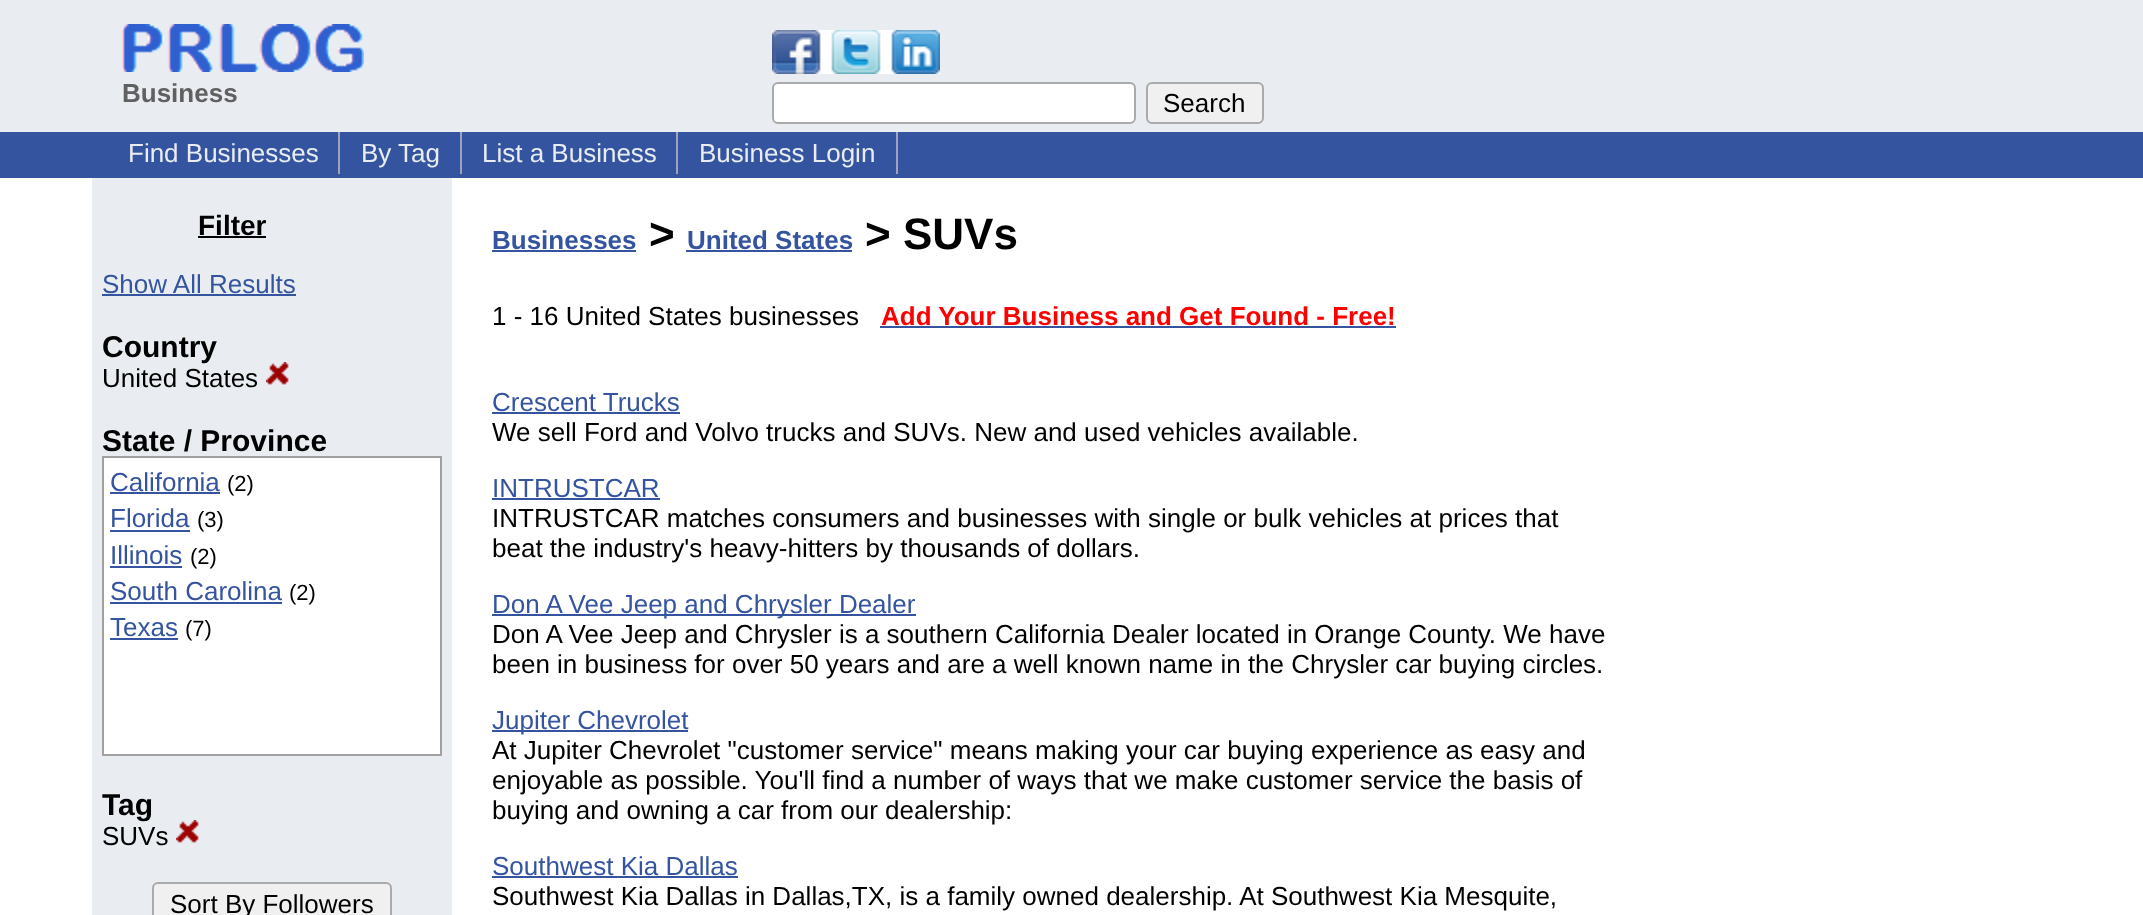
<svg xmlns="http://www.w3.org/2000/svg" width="2143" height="915">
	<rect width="100%" height="100%" fill="#FFFFFF" />
	<rect x="0" y="0" width="2143" height="132" fill="#E9EDF2" />
	<image x="122" y="24" width="242" height="48" href="assets/img1.png" />
	<text x="122" y="102" font-family="Liberation Sans" font-size="26" font-weight="700" fill="#606060">Business</text>
	<image x="772" y="30" width="168" height="44" href="assets/img2.png" />
	<rect x="773" y="83" width="362" height="40" rx="5" fill="#FFFFFF" stroke="#AAAAAA" stroke-width="2" />
	<rect x="1147" y="83" width="116" height="40" rx="5" fill="#F0F0F0" stroke="#AAAAAA" stroke-width="2" />
	<text x="1163" y="112" font-family="Liberation Sans" font-size="26" fill="#000000">Search</text>
	<rect x="0" y="132" width="2143" height="46" fill="#3454A0" />
	<rect x="338" y="132" width="2" height="42" fill="#A0A0C0" />
	<text x="128" y="162" font-family="Liberation Sans" font-size="26" fill="#E9EDF2">Find Businesses</text>
	<rect x="460" y="132" width="2" height="42" fill="#A0A0C0" />
	<text x="361" y="162" font-family="Liberation Sans" font-size="26" fill="#E9EDF2">By Tag</text>
	<rect x="676" y="132" width="2" height="42" fill="#A0A0C0" />
	<text x="482" y="162" font-family="Liberation Sans" font-size="26" fill="#E9EDF2">List a Business</text>
	<rect x="896" y="132" width="2" height="42" fill="#A0A0C0" />
	<text x="699" y="162" font-family="Liberation Sans" font-size="26" fill="#E9EDF2">Business Login</text>
	<rect x="92" y="178" width="360" height="737" fill="#E9EDF2" />
	<text x="198" y="235" font-family="Liberation Sans" font-size="28" font-weight="700" fill="#000000">Filter</text>
	<rect x="198" y="236" width="68" height="2" fill="#000000" />
	<text x="102" y="293" font-family="Liberation Sans" font-size="26" fill="#3454A0">Show All Results</text>
	<rect x="102" y="294" width="194" height="2" fill="#3454A0" />
	<text x="102" y="357" font-family="Liberation Sans" font-size="30" font-weight="700" fill="#000000">Country</text>
	<text x="102" y="387" font-family="Liberation Sans" font-size="26" fill="#000000">United States</text>
	<image x="266" y="362" width="23" height="23" href="assets/img3.png" />
	<text x="102" y="451" font-family="Liberation Sans" font-size="30" font-weight="700" fill="#000000">State / Province</text>
	<rect x="103" y="457" width="338" height="298" fill="#FFFFFF" stroke="#A0A0A0" stroke-width="2" />
	<text x="110" y="491" font-family="Liberation Sans" font-size="26" fill="#3454A0">California</text>
	<rect x="110" y="492" width="110" height="2" fill="#3454A0" />
	<text x="227" y="491" font-family="Liberation Sans" font-size="22" fill="#000000">(2)</text>
	<text x="110" y="527" font-family="Liberation Sans" font-size="26" fill="#3454A0">Florida</text>
	<rect x="110" y="530" width="80" height="2" fill="#3454A0" />
	<text x="197" y="527" font-family="Liberation Sans" font-size="22" fill="#000000">(3)</text>
	<text x="110" y="564" font-family="Liberation Sans" font-size="26" fill="#3454A0">Illinois</text>
	<rect x="110" y="566" width="72" height="2" fill="#3454A0" />
	<text x="190" y="564" font-family="Liberation Sans" font-size="22" fill="#000000">(2)</text>
	<text x="110" y="600" font-family="Liberation Sans" font-size="26" fill="#3454A0">South Carolina</text>
	<rect x="110" y="602" width="172" height="2" fill="#3454A0" />
	<text x="289" y="600" font-family="Liberation Sans" font-size="22" fill="#000000">(2)</text>
	<text x="110" y="636" font-family="Liberation Sans" font-size="26" fill="#3454A0">Texas</text>
	<rect x="110" y="638" width="68" height="2" fill="#3454A0" />
	<text x="185" y="636" font-family="Liberation Sans" font-size="22" fill="#000000">(7)</text>
	<text x="102" y="815" font-family="Liberation Sans" font-size="30" font-weight="700" fill="#000000">Tag</text>
	<text x="102" y="845" font-family="Liberation Sans" font-size="26" fill="#000000">SUVs</text>
	<image x="176" y="820" width="23" height="23" href="assets/img3.png" />
	<rect x="153" y="883" width="238" height="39" rx="5" fill="#F0F0F0" stroke="#AAAAAA" stroke-width="2" />
	<text x="170" y="913" font-family="Liberation Sans" font-size="26" fill="#000000">Sort By Followers</text>
	<text x="492" y="249" font-family="Liberation Sans" font-size="26" font-weight="700" fill="#3454A0">Businesses</text>
	<rect x="492" y="250" width="144" height="2" fill="#3454A0" />
	<text x="649" y="249" font-family="Liberation Sans" font-size="44" font-weight="700" fill="#000000">&gt;</text>
	<text x="687" y="249" font-family="Liberation Sans" font-size="26" font-weight="700" fill="#3454A0">United States</text>
	<rect x="686" y="250" width="166" height="2" fill="#3454A0" />
	<text x="865" y="249" font-family="Liberation Sans" font-size="44" font-weight="700" fill="#000000">&gt; SUVs</text>
	<text x="492" y="325" font-family="Liberation Sans" font-size="26" fill="#000000">1 - 16 United States businesses</text>
	<text x="881" y="325" font-family="Liberation Sans" font-size="26" font-weight="700" fill="#FF0000">Add Your Business and Get Found - Free!</text>
	<rect x="880" y="326" width="516" height="2" fill="#3454A0" />
	<text x="492" y="411" font-family="Liberation Sans" font-size="26" fill="#3454A0">Crescent Trucks</text>
	<rect x="492" y="412" width="188" height="2" fill="#3454A0" />
	<text x="492" y="441" font-family="Liberation Sans" font-size="26" fill="#000000">We sell Ford and Volvo trucks and SUVs. New and used vehicles available.</text>
	<text x="492" y="497" font-family="Liberation Sans" font-size="26" fill="#3454A0">INTRUSTCAR</text>
	<rect x="492" y="498" width="168" height="2" fill="#3454A0" />
	<g font-family="Liberation Sans" font-size="26" fill="#000000">
		<text x="492" y="527">INTRUSTCAR matches consumers and businesses with single or bulk vehicles at prices that</text>
		<text x="492" y="557">beat the industry's heavy-hitters by thousands of dollars.</text>
	</g>
	<rect x="492" y="614" width="424" height="2" fill="#3454A0" />
	<text x="492" y="613" font-family="Liberation Sans" font-size="26" fill="#3454A0">Don A Vee Jeep and Chrysler Dealer</text>
	<g font-family="Liberation Sans" font-size="26" fill="#000000">
		<text x="492" y="643">Don A Vee Jeep and Chrysler is a southern California Dealer located in Orange County. We have</text>
		<text x="492" y="673">been in business for over 50 years and are a well known name in the Chrysler car buying circles.</text>
	</g>
	<rect x="492" y="730" width="196" height="2" fill="#3454A0" />
	<text x="492" y="729" font-family="Liberation Sans" font-size="26" fill="#3454A0">Jupiter Chevrolet</text>
	<g font-family="Liberation Sans" font-size="26" fill="#000000">
		<text x="492" y="759">At Jupiter Chevrolet "customer service" means making your car buying experience as easy and</text>
		<text x="492" y="789">enjoyable as possible. You'll find a number of ways that we make customer service the basis of</text>
		<text x="492" y="819">buying and owning a car from our dealership:</text>
	</g>
	<text x="492" y="875" font-family="Liberation Sans" font-size="26" fill="#3454A0">Southwest Kia Dallas</text>
	<rect x="492" y="876" width="246" height="2" fill="#3454A0" />
	<text x="492" y="905" font-family="Liberation Sans" font-size="26" fill="#000000">Southwest Kia Dallas in Dallas,TX, is a family owned dealership. At Southwest Kia Mesquite,</text>
</svg>
